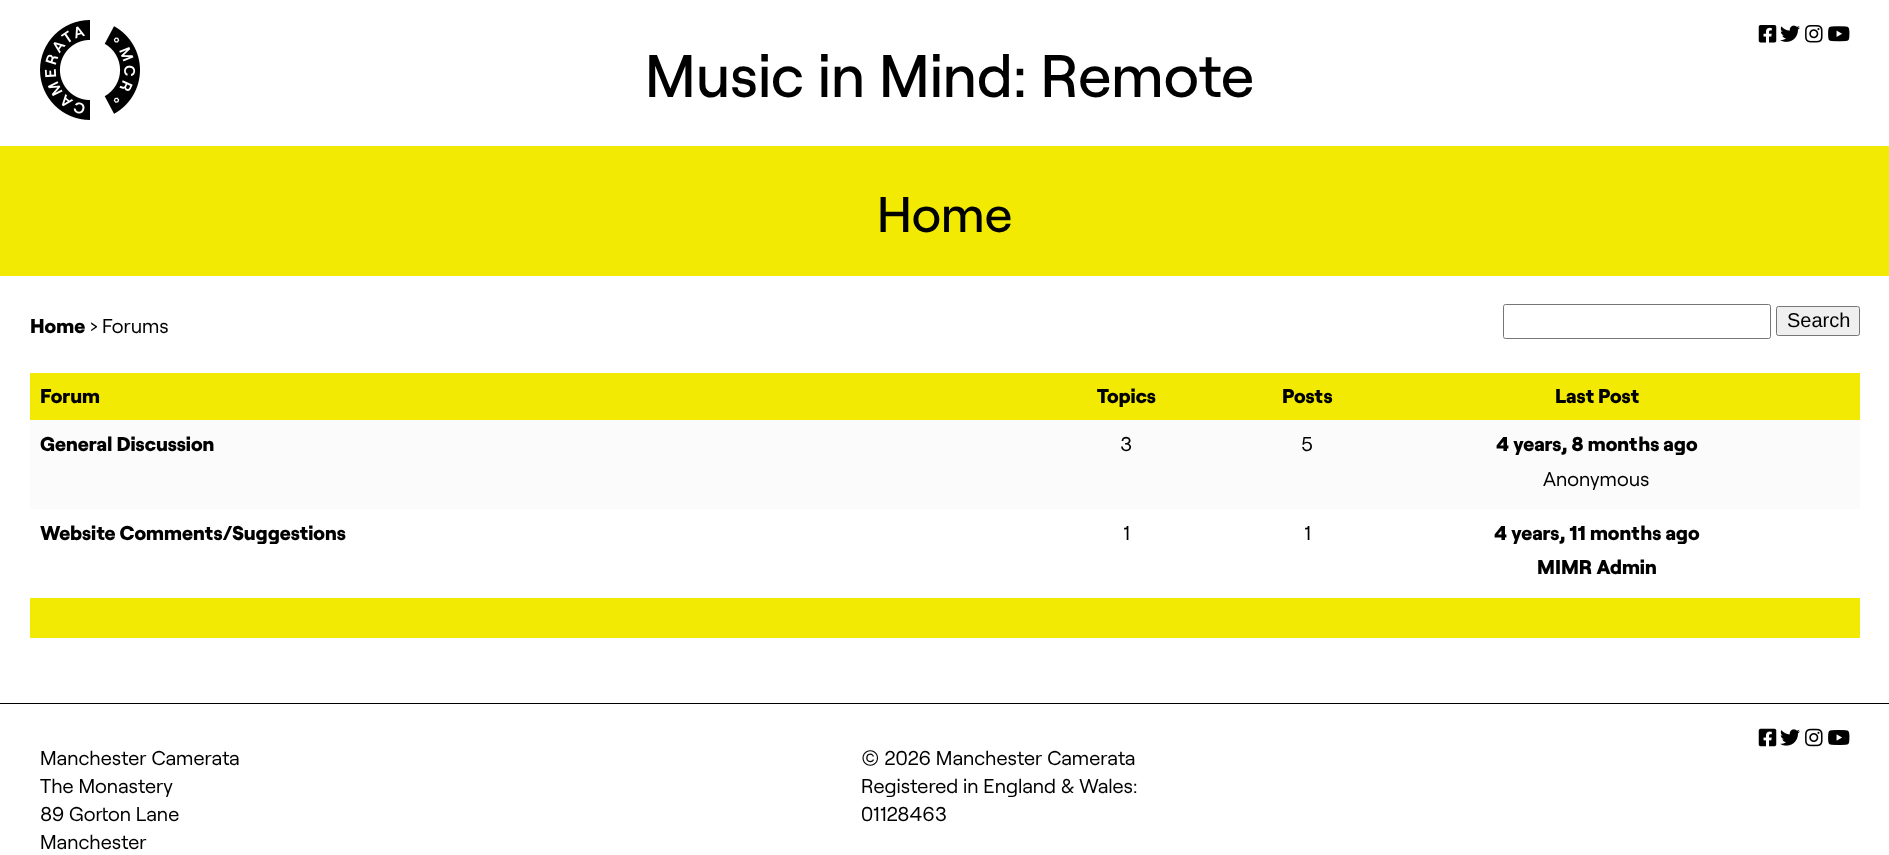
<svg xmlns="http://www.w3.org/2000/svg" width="1889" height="855">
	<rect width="100%" height="100%" fill="#FFFFFF" />
	<image x="40" y="20" width="100" height="100" href="assets/img1.png" />
	<image x="1758" y="25" width="19" height="18" href="assets/img2.png" />
	<image x="1780" y="25" width="20" height="17" href="assets/img3.png" />
	<image x="1805" y="25" width="18" height="18" href="assets/img4.png" />
	<image x="1828" y="26" width="22" height="16" href="assets/img5.png" />
	<text x="645" y="97" font-family="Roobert" font-size="60" font-weight="500" fill="#000000">Music in Mind: Remote</text>
	<rect x="0" y="146" width="1889" height="130" fill="#F2EA03" />
	<text x="877" y="232" font-family="Roobert" font-size="50" font-weight="500" fill="#000000">Home</text>
	<text x="30" y="333" font-family="Roobert" font-size="20" font-weight="900" fill="#000000">Home</text>
	<text x="90" y="333" font-family="Roobert" font-size="20" fill="#000000">› Forums</text>
	<rect x="1503.5" y="304.5" width="267" height="34" rx="2" fill="none" stroke="#767676" />
	<rect x="1776.5" y="306.5" width="83" height="29" rx="2" fill="#EFEFEF" stroke="#767676" />
	<text x="1787" y="327" font-family="Liberation Sans" font-size="20" fill="#000000">Search</text>
	<rect x="30" y="373" width="1830" height="47" fill="#F2EA03" />
	<g font-family="Roobert" font-size="20" font-weight="900" fill="#000000">
		<text x="40" y="403">Forum</text>
		<text x="1097" y="403">Topics</text>
		<text x="1282" y="403">Posts</text>
		<text x="1555" y="403">Last Post</text>
	</g>
	<rect x="30" y="420" width="1830" height="89" fill="#FBFBFB" />
	<text x="40" y="451" font-family="Roobert" font-size="20" font-weight="900" fill="#000000">General Discussion</text>
	<g font-family="Roobert" font-size="20" fill="#000000">
		<text x="1120" y="451">3</text>
		<text x="1301" y="451">5</text>
	</g>
	<text x="1496" y="451" font-family="Roobert" font-size="20" font-weight="900" fill="#000000">4 years, 8 months ago</text>
	<text x="1543" y="486" font-family="Roobert" font-size="20" fill="#000000">Anonymous</text>
	<text x="40" y="540" font-family="Roobert" font-size="20" font-weight="900" fill="#000000">Website Comments/Suggestions</text>
	<g font-family="Roobert" font-size="20" fill="#000000">
		<text x="1123" y="540">1</text>
		<text x="1304" y="540">1</text>
	</g>
	<g font-family="Roobert" font-size="20" font-weight="900" fill="#000000">
		<text x="1494" y="540">4 years, 11 months ago</text>
		<text x="1537" y="574">MIMR Admin</text>
	</g>
	<rect x="30" y="598" width="1830" height="40" fill="#F2EA03" />
	<rect x="0" y="703" width="1889" height="1" fill="#000000" />
	<image x="1758" y="728" width="19" height="19" href="assets/img6.png" />
	<image x="1780" y="729" width="20" height="17" href="assets/img7.png" />
	<image x="1805" y="728" width="18" height="19" href="assets/img8.png" />
	<image x="1828" y="730" width="22" height="15" href="assets/img9.png" />
	<g font-family="Roobert" font-size="20" fill="#000000">
		<text x="40" y="765">Manchester Camerata</text>
		<text x="40" y="793">The Monastery</text>
		<text x="40" y="821">89 Gorton Lane</text>
		<text x="40" y="849">Manchester</text>
		<text x="861" y="765">© 2026 Manchester Camerata</text>
		<text x="861" y="793">Registered in England &amp; Wales:</text>
		<text x="861" y="821">01128463</text>
	</g>
</svg>
